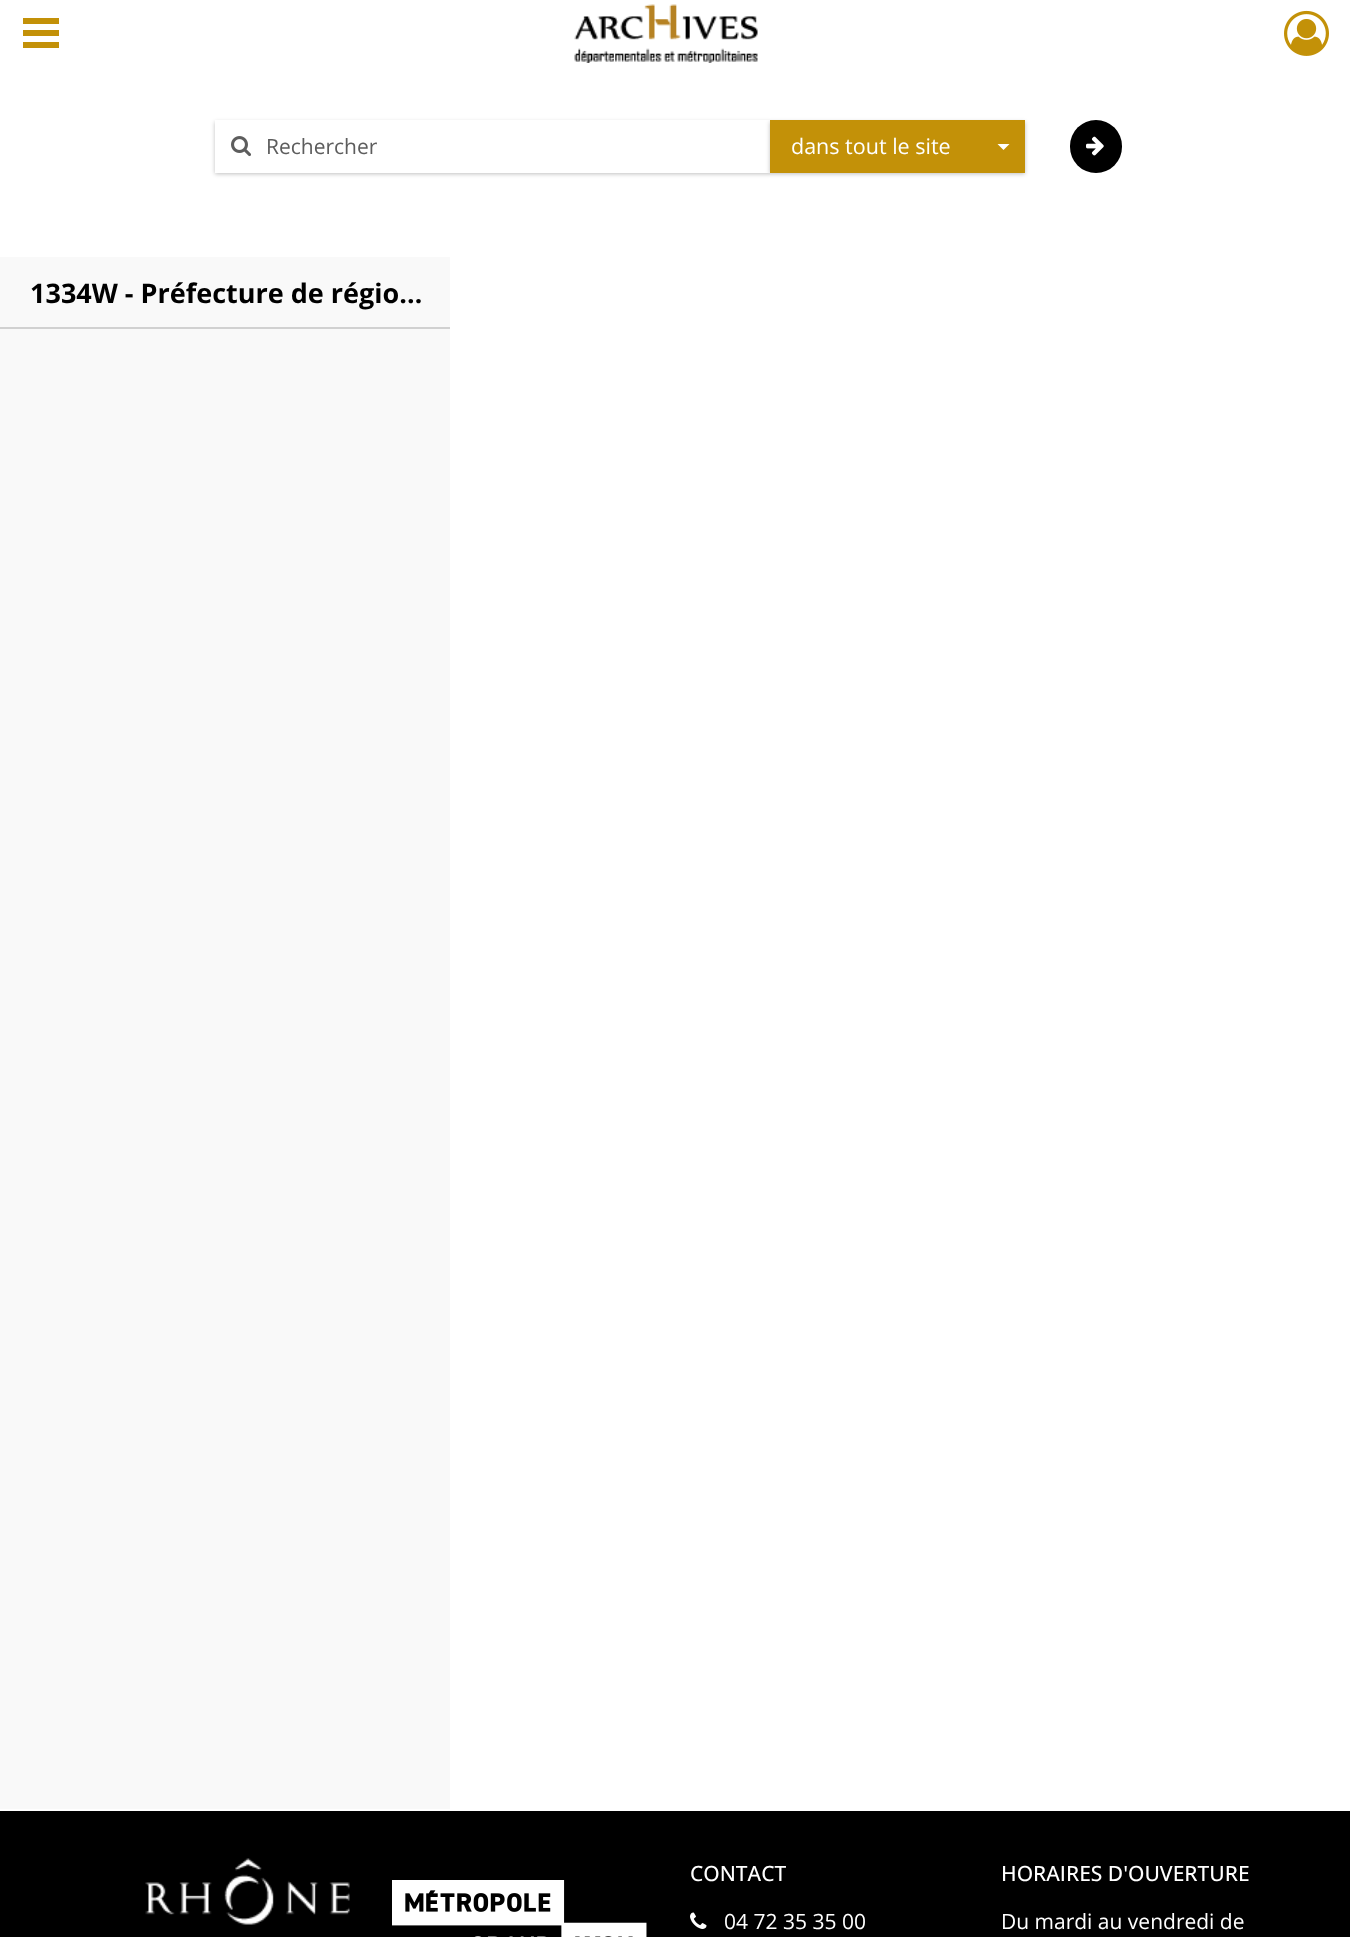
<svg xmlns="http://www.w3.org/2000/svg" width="1350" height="1937">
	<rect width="100%" height="100%" fill="#FFFFFF" />
	<rect x="23" y="18" width="36" height="6" fill="#C39108" />
	<rect x="23" y="30" width="36" height="6" fill="#C39108" />
	<rect x="23" y="42" width="36" height="6" fill="#C39108" />
	<image x="574" y="4" width="184" height="59" href="assets/img1.png" />
	<image x="1284" y="10" width="45" height="46" href="assets/img2.png" />
	<rect x="215" y="122" width="555" height="52" fill="#000000" fill-opacity="0.25" filter="blur(2px)" />
	<rect x="215" y="120" width="555" height="53" fill="#FFFFFF" />
	<image x="231" y="136" width="20" height="21" href="assets/img3.png" />
	<text x="266" y="154" font-family="Open Sans" font-size="21" fill="#5D5D5D">Rechercher</text>
	<rect x="770" y="122" width="255" height="52" fill="#000000" fill-opacity="0.25" filter="blur(2px)" />
	<rect x="770" y="120" width="255" height="53" fill="#C39108" />
	<text x="791" y="154" font-family="Open Sans" font-size="21.5" fill="#FFFFFF">dans tout le site</text>
	<path d="M997.5 144H1009.5L1003.5 150Z" fill="#FFFFFF" />
	<rect x="1070" y="120" width="52" height="53" rx="26" fill="#000000" />
	<image x="1086" y="136" width="18" height="20" href="assets/img4.png" />
	<rect x="0" y="257" width="450" height="70" fill="#F9F9F9" />
	<rect x="0" y="327" width="450" height="2" fill="#D1D1D1" />
	<text x="30" y="303" font-family="Open Sans" font-size="27" font-weight="700" fill="#000000">1334W - Préfecture de régio…</text>
	<rect x="0" y="329" width="450" height="1480" fill="#F9F9F9" />
	<rect x="0" y="1811" width="1350" height="126" fill="#000000" />
	<image x="145" y="1858" width="205" height="67" href="assets/img5.png" />
	<image x="392" y="1880" width="255" height="57" href="assets/img6.png" />
	<text x="690" y="1881" font-family="Open Sans" font-size="21" font-weight="500" fill="#FFFFFF">CONTACT</text>
	<image x="690" y="1912" width="17" height="17" href="assets/img7.png" />
	<text x="724" y="1929" font-family="Open Sans" font-size="21" fill="#FFFFFF">04 72 35 35 00</text>
	<text x="1001" y="1881" font-family="Open Sans" font-size="21" font-weight="500" fill="#FFFFFF">HORAIRES D'OUVERTURE</text>
	<text x="1001" y="1929" font-family="Open Sans" font-size="21" fill="#FFFFFF">Du mardi au vendredi de</text>
</svg>
